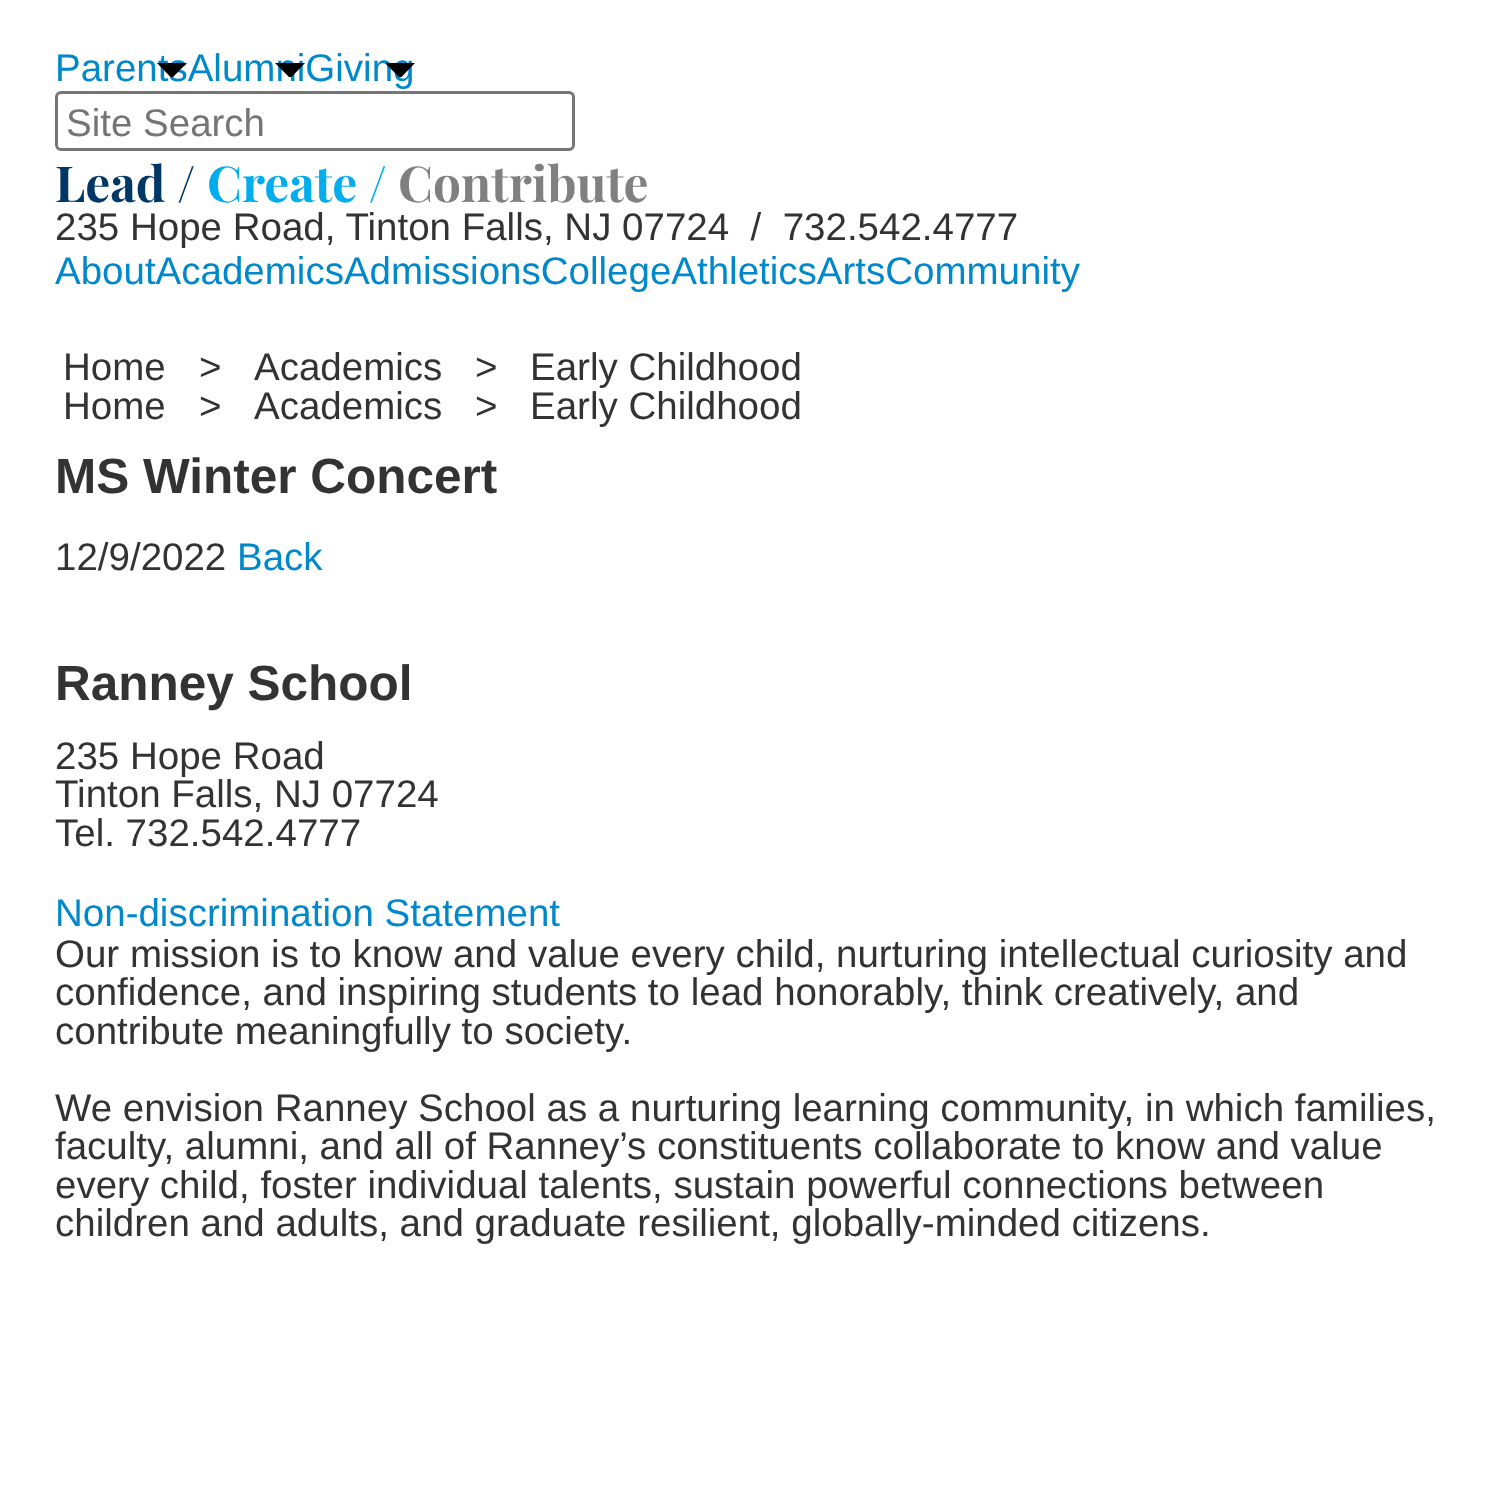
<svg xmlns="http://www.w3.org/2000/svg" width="1501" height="1501">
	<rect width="100%" height="100%" fill="#FFFFFF" />
	<text x="55" y="81" font-family="Liberation Sans" font-size="38.5" fill="#0088CC">ParentsAlumniGiving</text>
	<path d="M157 63H187L173 77H170.5Z" fill="#000000" />
	<path d="M275 63H305L291.5 77H289Z" fill="#000000" />
	<path d="M385 63H415L401.5 77H399Z" fill="#000000" />
	<rect x="56.5" y="92.5" width="517" height="57" rx="4.5" fill="none" stroke="#767676" stroke-width="3" />
	<text x="66" y="136" font-family="Liberation Sans" font-size="38.5" fill="#757575">Site Search</text>
	<text x="55" y="202" font-family="Playfair Display" font-size="49.5" font-weight="700" fill="#003767">Lead /</text>
	<text x="207" y="202" font-family="Playfair Display" font-size="49.5" font-weight="700" fill="#00ADEE">Create /</text>
	<text x="398" y="202" font-family="Playfair Display" font-size="49.5" font-weight="700" fill="#808080">Contribute</text>
	<text x="55" y="240" font-family="Liberation Sans" font-size="38.5" fill="#333333" xml:space="preserve">235 Hope Road, Tinton Falls, NJ 07724  /  732.542.4777</text>
	<text x="55" y="284" font-family="Liberation Sans" font-size="38.5" fill="#0088CC">AboutAcademicsAdmissionsCollegeAthleticsArtsCommunity</text>
	<g font-family="Liberation Sans" font-size="38.5" fill="#333333">
		<text x="63" y="380">Home</text>
		<text x="199" y="380">&gt;</text>
		<text x="254" y="380">Academics</text>
		<text x="475" y="380">&gt;</text>
		<text x="530" y="380">Early Childhood</text>
		<text x="63" y="419">Home</text>
		<text x="199" y="419">&gt;</text>
		<text x="254" y="419">Academics</text>
		<text x="475" y="419">&gt;</text>
		<text x="530" y="419">Early Childhood</text>
	</g>
	<text x="55" y="493" font-family="Liberation Sans" font-size="49.5" font-weight="700" fill="#333333">MS Winter Concert</text>
	<text x="55" y="570" font-family="Liberation Sans" font-size="38.5" fill="#333333">12/9/2022</text>
	<text x="237" y="570" font-family="Liberation Sans" font-size="38.5" fill="#0088CC">Back</text>
	<text x="55" y="700" font-family="Liberation Sans" font-size="49.5" font-weight="700" fill="#333333">Ranney School</text>
	<g font-family="Liberation Sans" font-size="38.5" fill="#333333">
		<text x="55" y="769">235 Hope Road</text>
		<text x="55" y="807">Tinton Falls, NJ 07724</text>
		<text x="55" y="846">Tel. 732.542.4777</text>
	</g>
	<text x="55" y="926" font-family="Liberation Sans" font-size="38.5" fill="#0088CC">Non-discrimination Statement</text>
	<g font-family="Liberation Sans" font-size="38.5" fill="#333333">
		<text x="55" y="967">Our mission is to know and value every child, nurturing intellectual curiosity and</text>
		<text x="55" y="1005">confidence, and inspiring students to lead honorably, think creatively, and</text>
		<text x="55" y="1044">contribute meaningfully to society.</text>
		<text x="55" y="1121">We envision Ranney School as a nurturing learning community, in which families,</text>
		<text x="55" y="1159">faculty, alumni, and all of Ranney’s constituents collaborate to know and value</text>
		<text x="55" y="1198">every child, foster individual talents, sustain powerful connections between</text>
		<text x="55" y="1236">children and adults, and graduate resilient, globally-minded citizens.</text>
	</g>
</svg>
